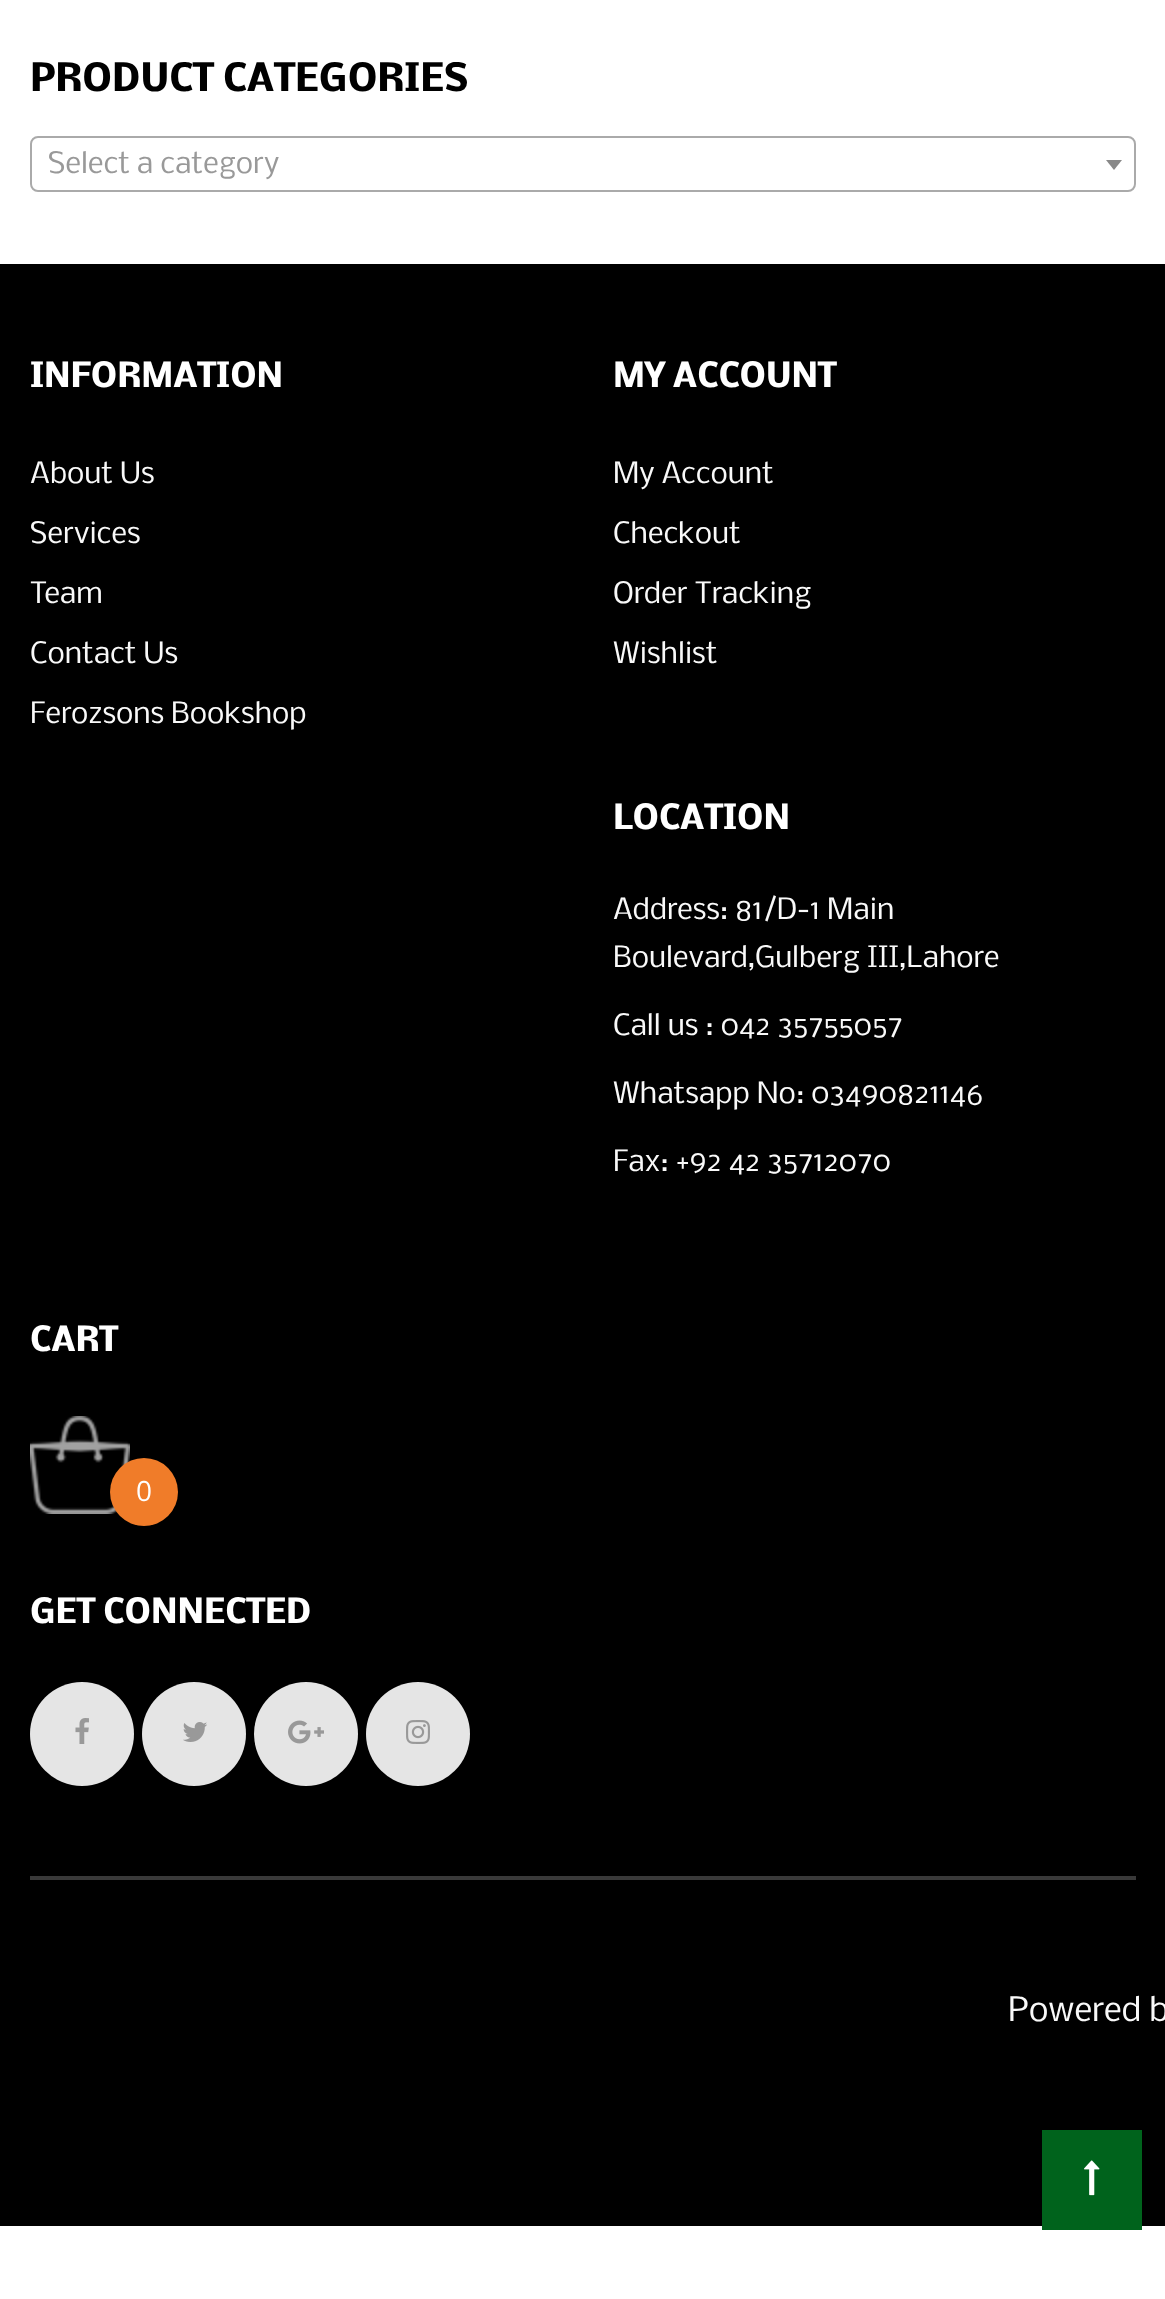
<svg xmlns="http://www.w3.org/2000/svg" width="1165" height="2299">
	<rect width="100%" height="100%" fill="#FFFFFF" />
	<text x="30" y="91" font-family="Nobile" font-size="36" font-weight="700" fill="#000000">PRODUCT CATEGORIES</text>
	<rect x="31" y="137" width="1104" height="54" rx="7" fill="none" stroke="#AAAAAA" stroke-width="2" />
	<text x="48" y="173" font-family="Nobile" font-size="28" fill="#999999">Select a category</text>
	<path d="M1106 160H1122L1114 170Z" fill="#888888" />
	<rect x="0" y="264" width="1165" height="1962" fill="#000000" />
	<text x="30" y="387" font-family="Nobile" font-size="32" font-weight="700" fill="#FFFFFF">INFORMATION</text>
	<g font-family="Nobile" font-size="28" fill="#F9F9F9">
		<text x="30" y="483">About Us</text>
		<text x="30" y="543">Services</text>
		<text x="30" y="603">Team</text>
		<text x="30" y="663">Contact Us</text>
		<text x="30" y="723">Ferozsons Bookshop</text>
	</g>
	<text x="613" y="387" font-family="Nobile" font-size="32" font-weight="700" fill="#FFFFFF">MY ACCOUNT</text>
	<g font-family="Nobile" font-size="28" fill="#F9F9F9">
		<text x="613" y="483">My Account</text>
		<text x="613" y="543">Checkout</text>
		<text x="613" y="603">Order Tracking</text>
		<text x="613" y="663">Wishlist</text>
	</g>
	<text x="613" y="829" font-family="Nobile" font-size="32" font-weight="700" fill="#FFFFFF">LOCATION</text>
	<g font-family="Nobile" font-size="28" fill="#F9F9F9">
		<text x="613" y="919">Address: 81/D-1 Main</text>
		<text x="613" y="967">Boulevard,Gulberg III,Lahore</text>
		<text x="613" y="1035">Call us : 042 35755057</text>
		<text x="613" y="1103">Whatsapp No: 03490821146</text>
		<text x="613" y="1171">Fax: +92 42 35712070</text>
	</g>
	<text x="30" y="1351" font-family="Nobile" font-size="32" font-weight="700" fill="#FFFFFF">CART</text>
	<image x="30" y="1416" width="100" height="98" href="assets/img1.png" />
	<circle cx="144" cy="1492" r="34" fill="#F07C29" />
	<text x="136" y="1501" font-family="Open Sans" font-size="28" fill="#FFFFFF">0</text>
	<text x="30" y="1623" font-family="Nobile" font-size="32" font-weight="700" fill="#FFFFFF">GET CONNECTED</text>
	<circle cx="82" cy="1734" r="52" fill="#E5E5E5" />
	<image x="75" y="1718" width="14" height="26" href="assets/img2.png" />
	<circle cx="194" cy="1734" r="52" fill="#E5E5E5" />
	<image x="183" y="1722" width="24" height="20" href="assets/img3.png" />
	<circle cx="306" cy="1734" r="52" fill="#E5E5E5" />
	<image x="288" y="1720" width="36" height="24" href="assets/img4.png" />
	<circle cx="418" cy="1734" r="52" fill="#E5E5E5" />
	<image x="406" y="1720" width="24" height="24" href="assets/img5.png" />
	<rect x="30" y="1876" width="1106" height="4" fill="#393939" />
	<text x="1008" y="2021" font-family="Nobile" font-size="32" fill="#F9F9F9">Powered b</text>
	<rect x="1042" y="2130" width="100" height="100" fill="#00631C" />
	<image x="1084" y="2160" width="16" height="36" href="assets/img6.png" />
</svg>
